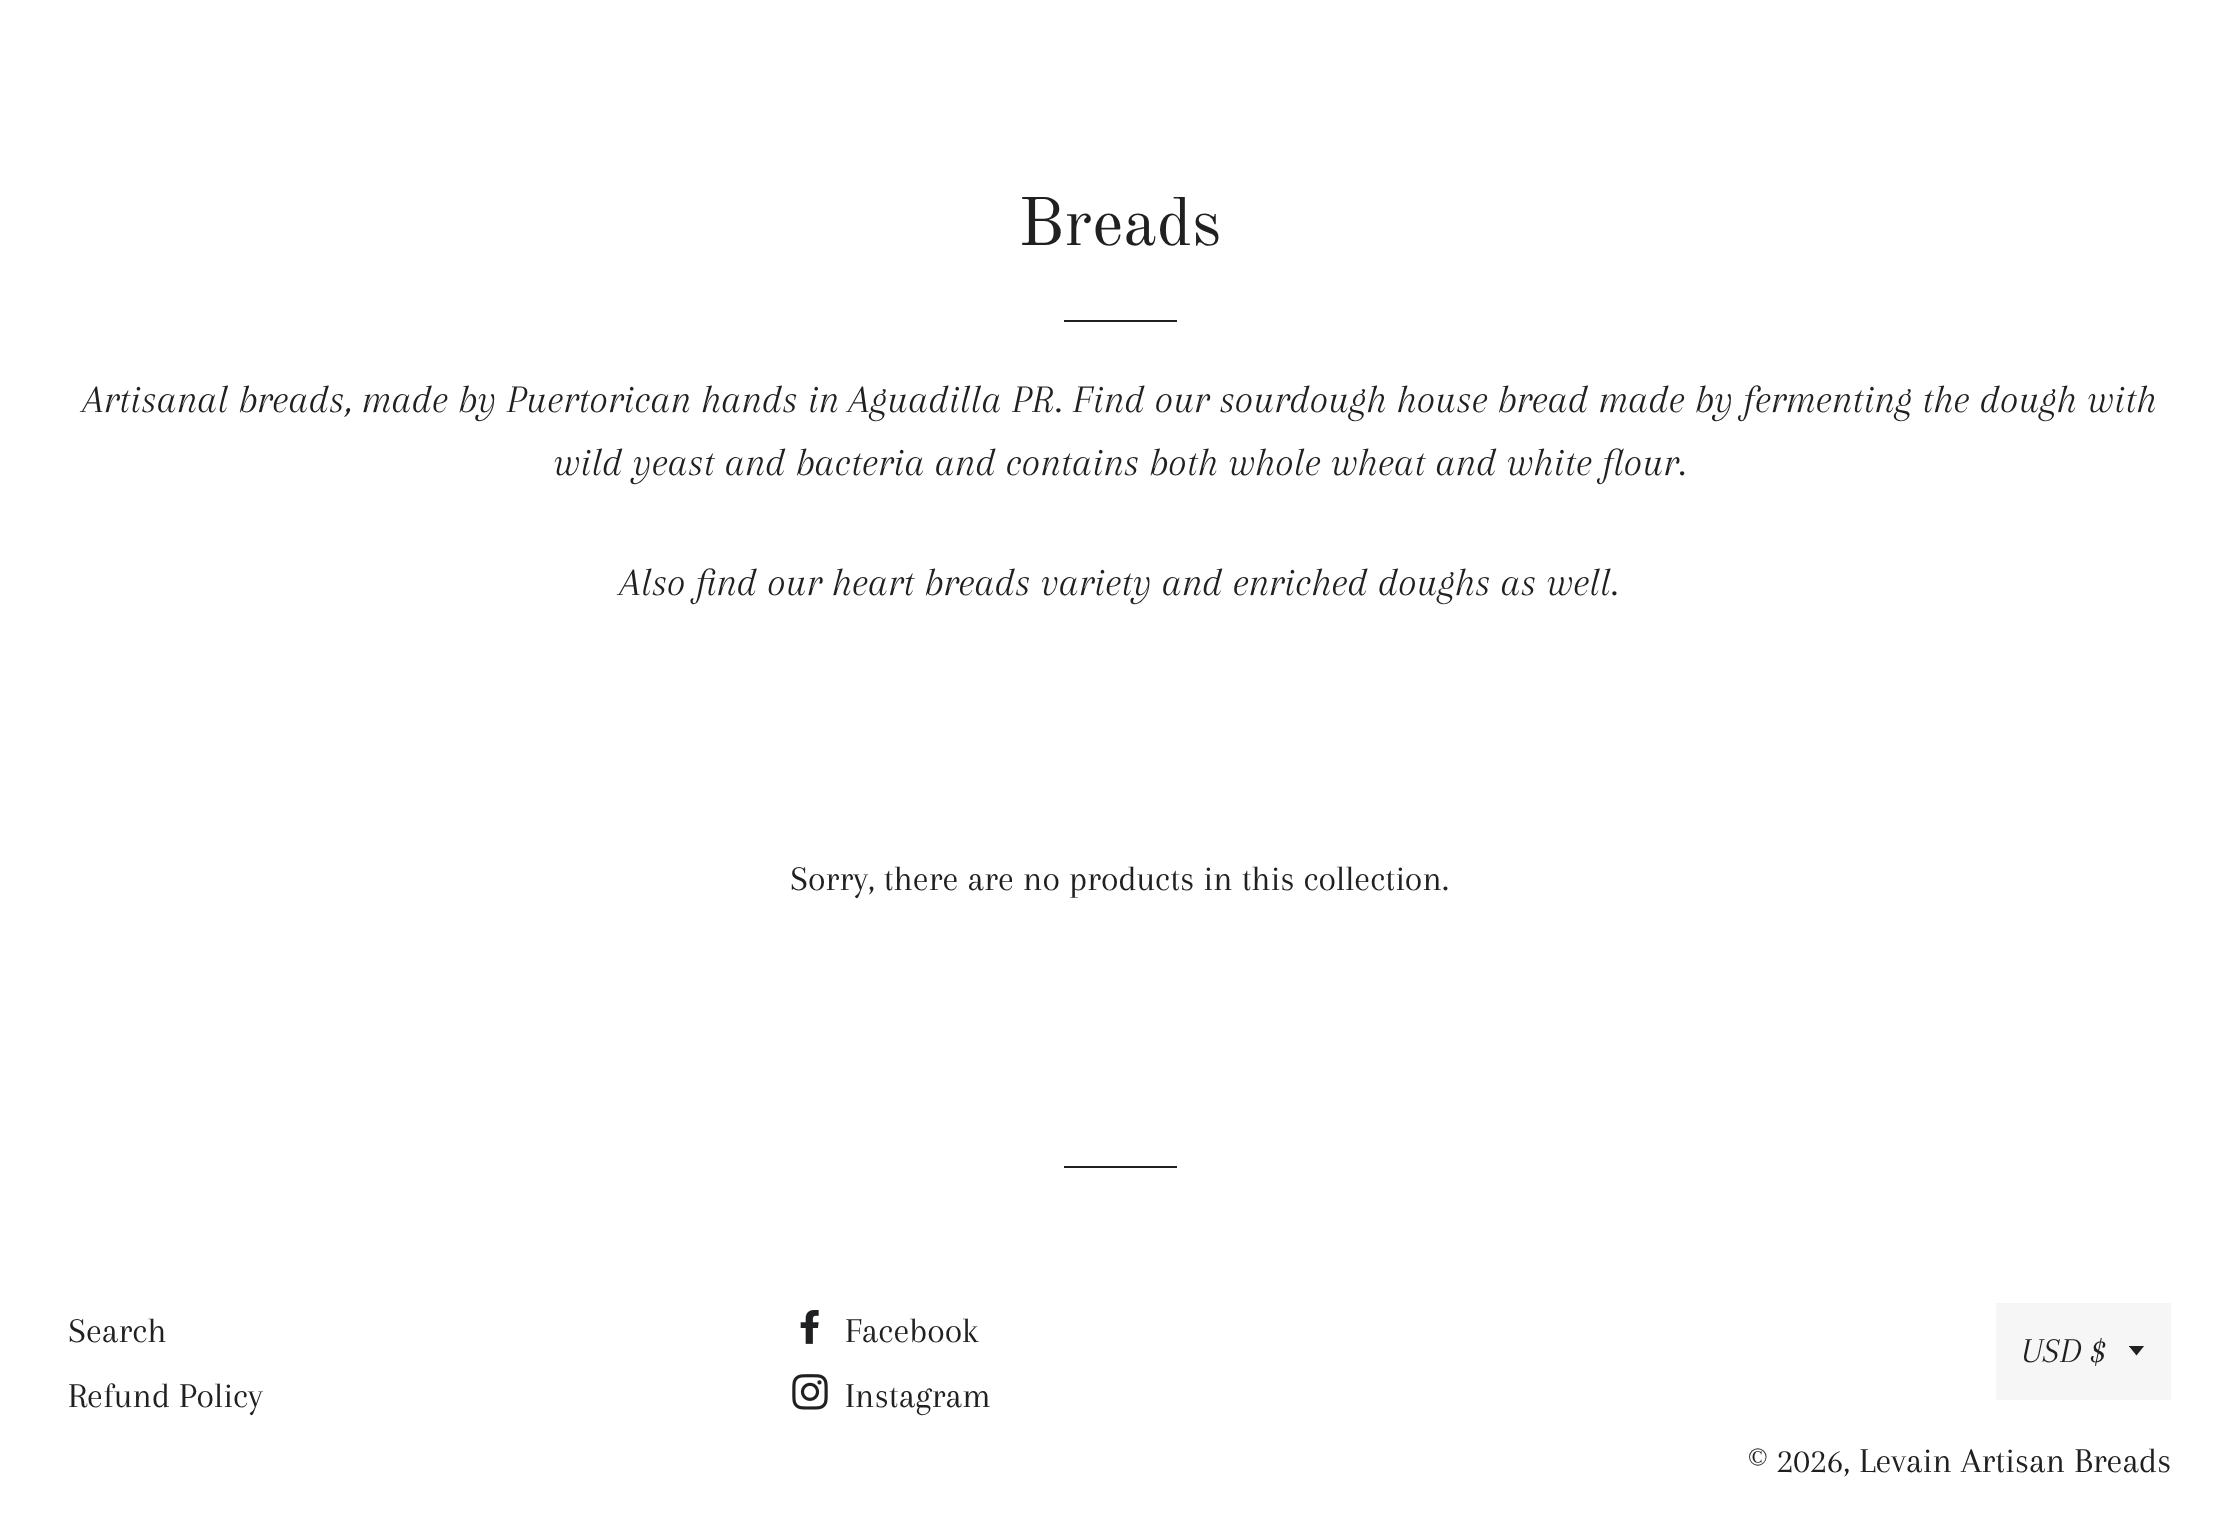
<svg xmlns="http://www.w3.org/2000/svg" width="2237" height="1523">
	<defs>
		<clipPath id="clip1"><rect x="2129" y="1346" width="18" height="11" /></clipPath>
	</defs>
	<rect width="100%" height="100%" fill="#FFFFFF" />
	<text x="1018" y="245" font-family="Old Standard TT" font-size="67.5" fill="#1F2021">Breads</text>
	<rect x="1064" y="320" width="113" height="2" fill="#1F2021" />
	<g font-family="Arapey" font-size="40.5" font-style="italic" fill="#1F2021">
		<text x="83" y="412">Artisanal breads, made by Puertorican hands in Aguadilla PR. Find our sourdough house bread made by fermenting the dough with</text>
		<text x="553" y="475">wild yeast and bacteria and contains both whole wheat and white flour.</text>
		<text x="620" y="595">Also find our heart breads variety and enriched doughs as well.</text>
	</g>
	<text x="790" y="890" font-family="Arapey" font-size="36" fill="#1F2021">Sorry, there are no products in this collection.</text>
	<rect x="1064" y="1166" width="113" height="2" fill="#1F2021" />
	<g font-family="Arapey" font-size="36" fill="#1F2021">
		<text x="68" y="1342">Search</text>
		<text x="68" y="1407">Refund Policy</text>
	</g>
	<image x="800" y="1310" width="19" height="34" href="assets/img1.png" />
	<text x="845" y="1342" font-family="Arapey" font-size="36" fill="#1F2021">Facebook</text>
	<image x="792" y="1374" width="36" height="36" href="assets/img2.png" />
	<text x="845" y="1407" font-family="Arapey" font-size="36" fill="#1F2021">Instagram</text>
	<rect x="1996" y="1303" width="175" height="97" fill="#F6F6F6" />
	<g clip-path="url(#clip1)">
		<path d="M2128.5 1345.5L2136.5 1355.5L2144.5 1345.5Z" fill="#1F2021" />
	</g>
	<text x="2021" y="1362" font-family="Arapey" font-size="36" font-style="italic" fill="#1F2021">USD $</text>
	<text x="1748" y="1472" font-family="Arapey" font-size="36" fill="#1F2021">© 2026, Levain Artisan Breads</text>
</svg>
